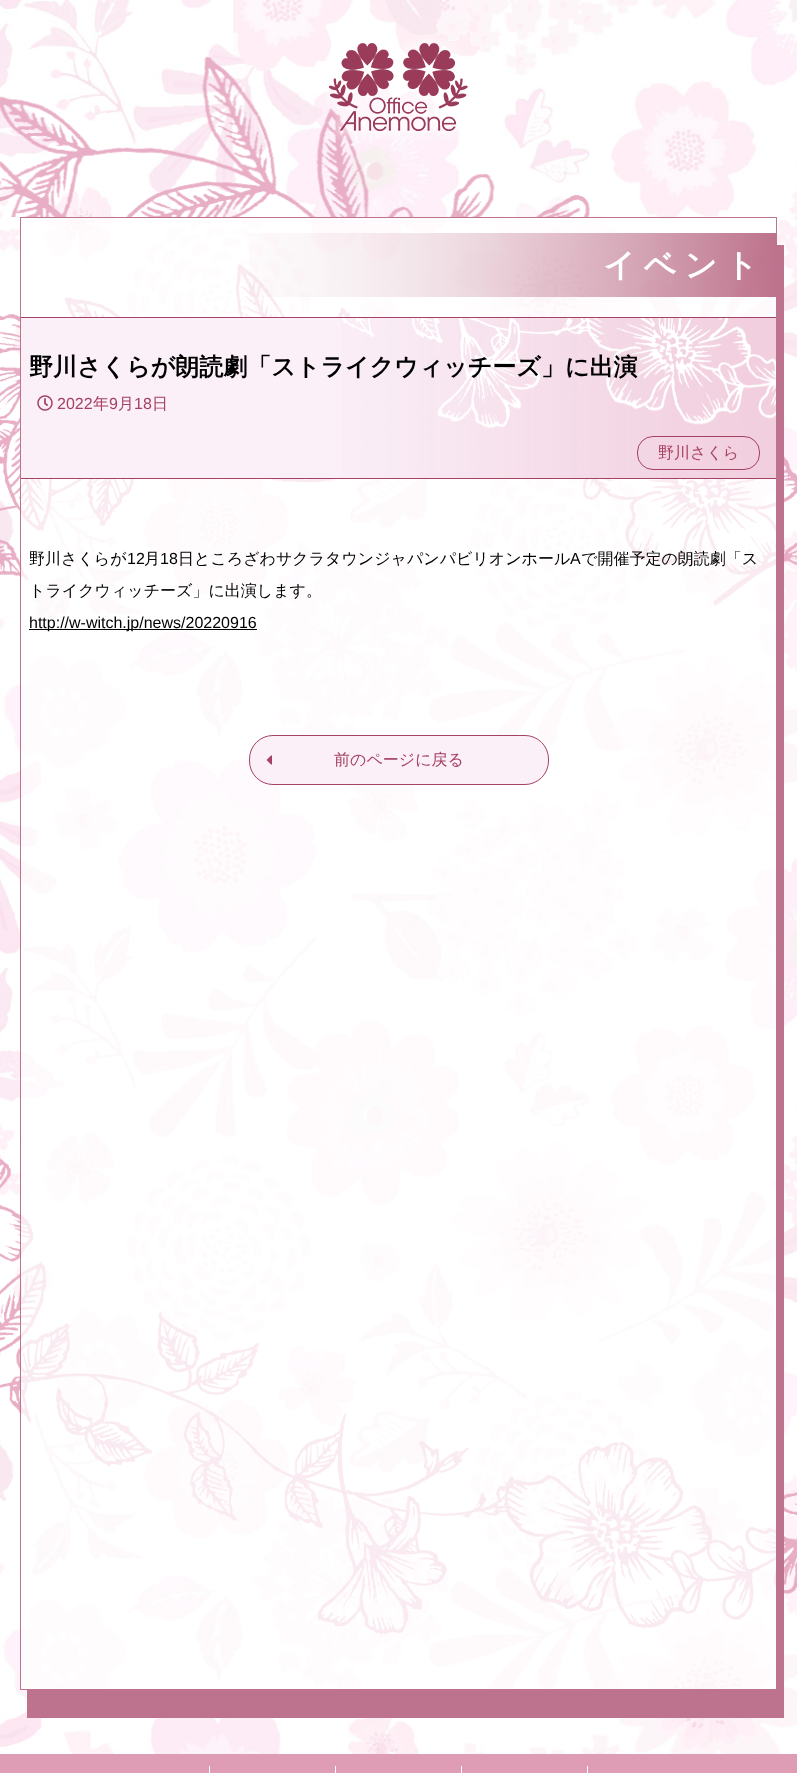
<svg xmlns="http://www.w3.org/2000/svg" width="797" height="1773">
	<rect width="100%" height="100%" fill="#FFFFFF" />
	<image x="0" y="0" width="797" height="1754" href="assets/img1.png" />
	<image x="0" y="56" width="590" height="161" href="assets/img2.png" />
	<image x="326" y="39" width="142" height="101" href="assets/img3.png" />
	<image x="0" y="264" width="797" height="1371" href="assets/img4.png" />
	<path d="M27 1690V1718H784V245H777V1690Z" fill="#BD738E" />
	<rect x="20.5" y="217.5" width="756" height="1472" fill="#FFFFFF" fill-opacity="0.75" stroke="#BD738E" />
	<image x="249" y="233" width="527" height="64" href="assets/img5.png" />
	<text x="603" y="276" font-family="WenQuanYi Zen Hei" font-size="32" font-weight="700" letter-spacing="8" fill="#FFFFFF">イベント</text>
	<rect x="21" y="318" width="755" height="160" fill="#FBF0F8" />
	<image x="341" y="318" width="435" height="160" href="assets/img6.png" />
	<rect x="21" y="317" width="755" height="1" fill="#A54162" />
	<rect x="21" y="478" width="755" height="1" fill="#A54162" />
	<text x="29" y="375" font-family="WenQuanYi Zen Hei" font-size="24" font-weight="700" fill="#000000">野川さくらが朗読劇「ストライクウィッチーズ」に出演</text>
	<image x="37" y="395" width="16" height="16" href="assets/img7.png" />
	<text x="57" y="409" font-family="Liberation Sans" font-size="16" fill="#A54162">2022</text>
	<text x="93" y="409" font-family="WenQuanYi Zen Hei" font-size="16" font-weight="500" fill="#A54162">年</text>
	<text x="109" y="409" font-family="Liberation Sans" font-size="16" fill="#A54162">9</text>
	<text x="118" y="409" font-family="WenQuanYi Zen Hei" font-size="16" font-weight="500" fill="#A54162">月</text>
	<text x="134" y="409" font-family="Liberation Sans" font-size="16" fill="#A54162">18</text>
	<text x="152" y="409" font-family="WenQuanYi Zen Hei" font-size="16" font-weight="500" fill="#A54162">日</text>
	<rect x="637.5" y="436.5" width="122" height="33" rx="15.5" fill="none" stroke="#A54162" />
	<text x="658" y="458" font-family="WenQuanYi Zen Hei" font-size="16" font-weight="500" fill="#A54162">野川さくら</text>
	<text x="29" y="564" font-family="WenQuanYi Zen Hei" font-size="16" font-weight="500" fill="#000000">野川さくらが</text>
	<text x="127" y="564" font-family="Liberation Sans" font-size="16" fill="#000000">12</text>
	<text x="144" y="564" font-family="WenQuanYi Zen Hei" font-size="16" font-weight="500" fill="#000000">月</text>
	<text x="160" y="564" font-family="Liberation Sans" font-size="16" fill="#000000">18</text>
	<text x="178" y="564" font-family="WenQuanYi Zen Hei" font-size="16" font-weight="500" fill="#000000">日ところざわサクラタウンジャパンパビリオンホール</text>
	<text x="570" y="564" font-family="Liberation Sans" font-size="16" fill="#000000">A</text>
	<g font-family="WenQuanYi Zen Hei" font-size="16" font-weight="500" fill="#000000">
		<text x="581" y="564">で開催予定の朗読劇「ス</text>
		<text x="29" y="596">トライクウィッチーズ」に出演します。</text>
	</g>
	<rect x="29" y="629" width="228" height="1" fill="#000000" />
	<text x="29" y="628" font-family="Liberation Sans" font-size="16" fill="#000000">http://w-witch.jp/news/20220916</text>
	<rect x="249.5" y="735.5" width="299" height="49" rx="23.5" fill="#FBF0F8" stroke="#A54162" />
	<image x="266" y="755" width="6" height="10" href="assets/img8.png" />
	<text x="334" y="765" font-family="WenQuanYi Zen Hei" font-size="16" font-weight="500" fill="#A54162">前のページに戻る</text>
	<rect x="0" y="1754" width="797" height="19" fill="#DF9DB5" />
	<rect x="209" y="1766" width="1" height="7" fill="#FFFFFF" />
	<rect x="335" y="1766" width="1" height="7" fill="#FFFFFF" />
	<rect x="461" y="1766" width="1" height="7" fill="#FFFFFF" />
	<rect x="587" y="1766" width="1" height="7" fill="#FFFFFF" />
</svg>
